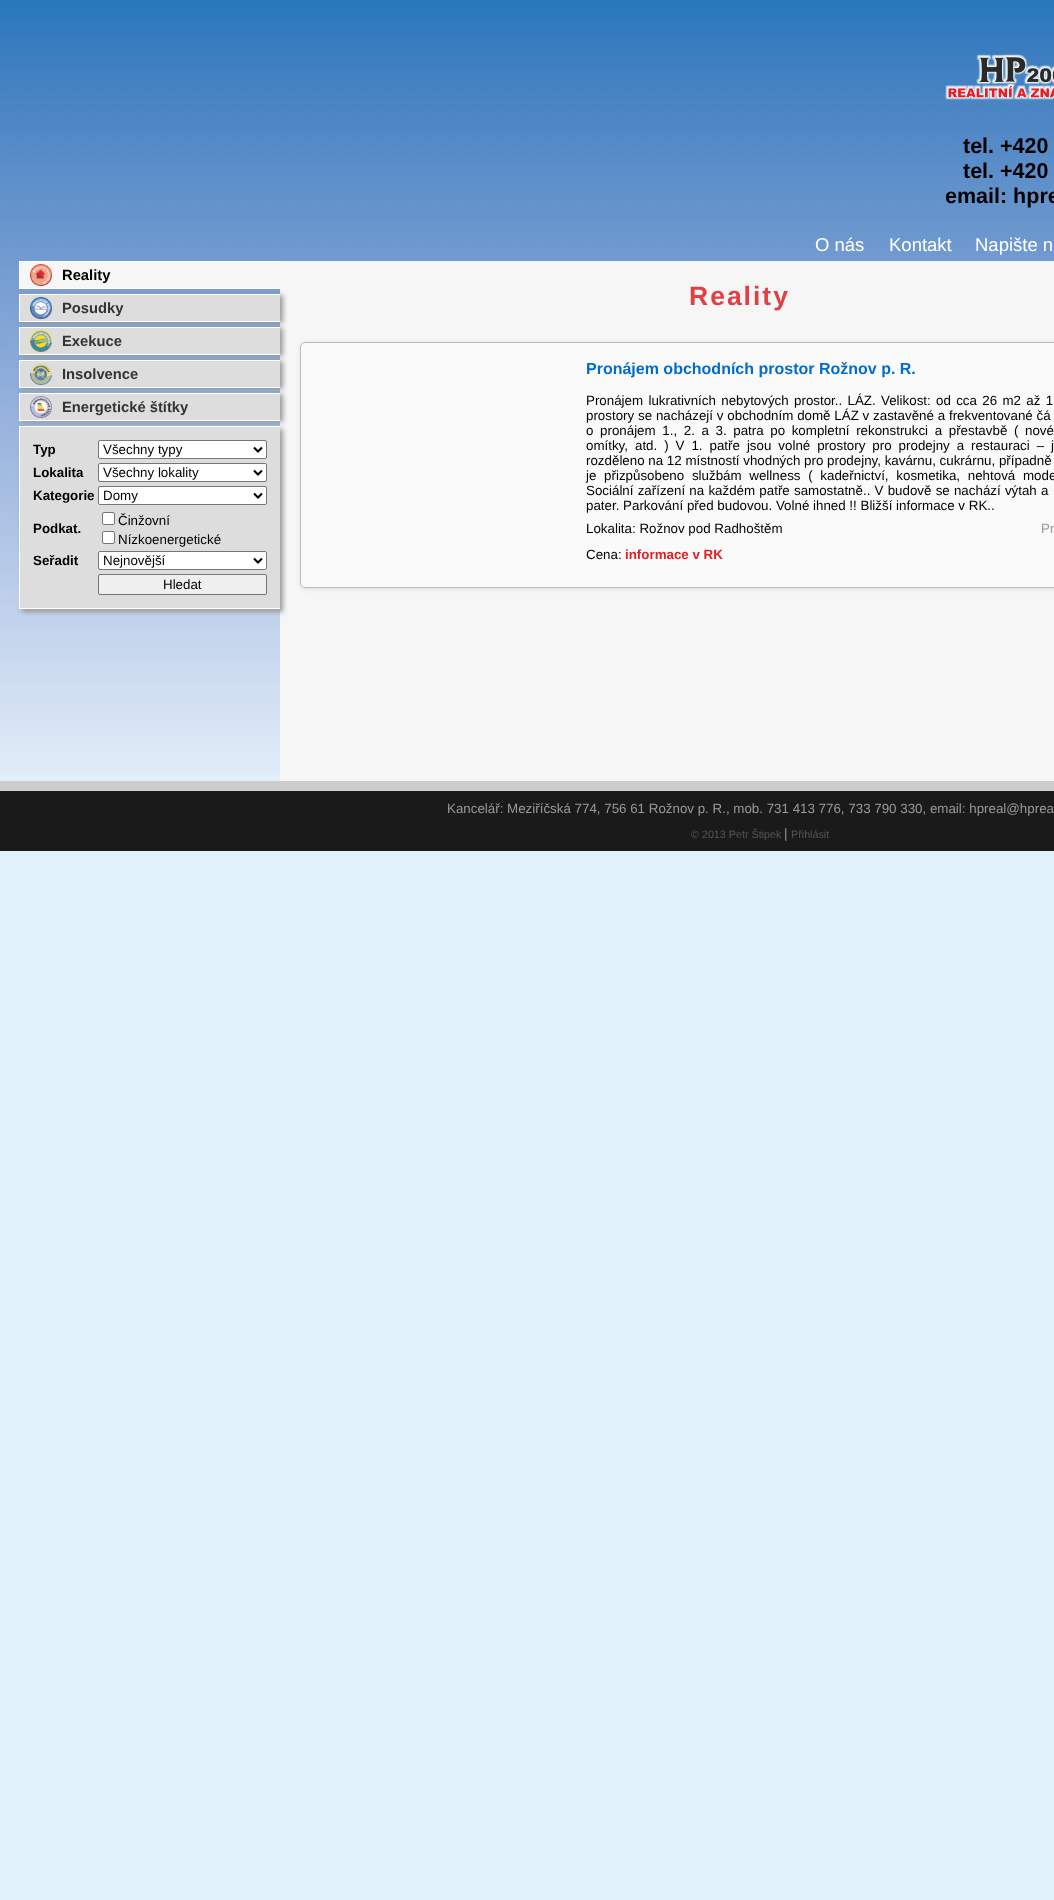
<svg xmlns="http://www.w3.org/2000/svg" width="1054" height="1900">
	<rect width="100%" height="100%" fill="#E1F1FA" />
	<image x="0" y="0" width="1054" height="781" href="assets/img1.png" />
	<image x="945" y="54" width="109" height="46" href="assets/img2.png" />
	<g font-family="Liberation Sans" font-size="21.5" font-weight="700" fill="#000000">
		<text x="963" y="153">tel. +420</text>
		<text x="963" y="178">tel. +420</text>
		<text x="945" y="203">email: hpre</text>
	</g>
	<g font-family="Liberation Sans" font-size="18.5" fill="#FFFFFF">
		<text x="815" y="251">O nás</text>
		<text x="889" y="251">Kontakt</text>
		<text x="975" y="251">Napište n</text>
	</g>
	<rect x="20" y="262" width="260" height="26" fill="#F6F6F6" />
	<image x="30" y="264" width="22" height="22" href="assets/img3.png" />
	<rect x="19" y="261" width="261" height="1" fill="#FFFFFF" />
	<rect x="19" y="288" width="261" height="1" fill="#FFFFFF" />
	<rect x="19" y="261" width="1" height="28" fill="#FFFFFF" />
	<text x="62" y="280" font-family="Liberation Sans" font-size="14.75" font-weight="700" fill="#000000">Reality</text>
	<rect x="280" y="261" width="774" height="520" fill="#F6F6F6" />
	<rect x="22" y="295" width="261" height="28" fill="#999999" filter="blur(2.5px)" />
	<rect x="20" y="295" width="260" height="26" fill="#DDDDDD" />
	<image x="30" y="297" width="22" height="22" href="assets/img4.png" />
	<rect x="19" y="294" width="261" height="1" fill="#FFFFFF" />
	<rect x="19" y="321" width="261" height="1" fill="#FFFFFF" />
	<rect x="19" y="294" width="1" height="28" fill="#FFFFFF" />
	<text x="62" y="313" font-family="Liberation Sans" font-size="14.75" font-weight="700" fill="#333333">Posudky</text>
	<rect x="22" y="328" width="261" height="28" fill="#999999" filter="blur(2.5px)" />
	<rect x="20" y="328" width="260" height="26" fill="#DDDDDD" />
	<image x="30" y="330" width="22" height="22" href="assets/img5.png" />
	<rect x="19" y="327" width="261" height="1" fill="#FFFFFF" />
	<rect x="19" y="354" width="261" height="1" fill="#FFFFFF" />
	<rect x="19" y="327" width="1" height="28" fill="#FFFFFF" />
	<text x="62" y="346" font-family="Liberation Sans" font-size="14.75" font-weight="700" fill="#333333">Exekuce</text>
	<rect x="22" y="361" width="261" height="28" fill="#999999" filter="blur(2.5px)" />
	<rect x="20" y="361" width="260" height="26" fill="#DDDDDD" />
	<image x="30" y="363" width="22" height="22" href="assets/img6.png" />
	<rect x="19" y="360" width="261" height="1" fill="#FFFFFF" />
	<rect x="19" y="387" width="261" height="1" fill="#FFFFFF" />
	<rect x="19" y="360" width="1" height="28" fill="#FFFFFF" />
	<text x="62" y="379" font-family="Liberation Sans" font-size="14.75" font-weight="700" fill="#333333">Insolvence</text>
	<rect x="22" y="394" width="261" height="28" fill="#999999" filter="blur(2.5px)" />
	<rect x="20" y="394" width="260" height="26" fill="#DDDDDD" />
	<image x="30" y="396" width="22" height="22" href="assets/img7.png" />
	<rect x="19" y="393" width="261" height="1" fill="#FFFFFF" />
	<rect x="19" y="420" width="261" height="1" fill="#FFFFFF" />
	<rect x="19" y="393" width="1" height="28" fill="#FFFFFF" />
	<text x="62" y="412" font-family="Liberation Sans" font-size="14.75" font-weight="700" fill="#333333">Energetické štítky</text>
	<rect x="22" y="429" width="261" height="183" fill="#999999" filter="blur(2.5px)" />
	<rect x="20" y="427" width="260" height="181" fill="#DDDDDD" />
	<rect x="19" y="426" width="261" height="1" fill="#FFFFFF" />
	<rect x="19" y="608" width="261" height="1" fill="#FFFFFF" />
	<rect x="19" y="426" width="1" height="183" fill="#FFFFFF" />
	<text x="33" y="454" font-family="Liberation Sans" font-size="13.35" font-weight="700" fill="#000000">Typ</text>
	<rect x="98.5" y="440.5" width="168" height="18" rx="1.5" fill="#FFFFFF" stroke="#767676" />
	<path d="M254 447.5L258 451.5L262 447.5" fill="none" stroke="#000000" stroke-width="2" />
	<text x="103" y="454" font-family="Liberation Sans" font-size="13.35" fill="#000000">Všechny typy</text>
	<text x="33" y="477" font-family="Liberation Sans" font-size="13.35" font-weight="700" fill="#000000">Lokalita</text>
	<rect x="98.5" y="463.5" width="168" height="18" rx="1.5" fill="#FFFFFF" stroke="#767676" />
	<path d="M254 470.5L258 474.5L262 470.5" fill="none" stroke="#000000" stroke-width="2" />
	<text x="103" y="477" font-family="Liberation Sans" font-size="13.35" fill="#000000">Všechny lokality</text>
	<text x="33" y="500" font-family="Liberation Sans" font-size="13.35" font-weight="700" fill="#000000">Kategorie</text>
	<rect x="98.5" y="486.5" width="168" height="18" rx="1.5" fill="#FFFFFF" stroke="#767676" />
	<path d="M254 493.5L258 497.5L262 493.5" fill="none" stroke="#000000" stroke-width="2" />
	<text x="103" y="500" font-family="Liberation Sans" font-size="13.35" fill="#000000">Domy</text>
	<text x="33" y="533" font-family="Liberation Sans" font-size="13.35" font-weight="700" fill="#000000">Podkat.</text>
	<rect x="102.5" y="512.5" width="12" height="12" rx="1.5" fill="#FFFFFF" stroke="#767676" />
	<text x="118" y="525" font-family="Liberation Sans" font-size="13.35" fill="#000000">Činžovní</text>
	<rect x="102.5" y="531.5" width="12" height="12" rx="1.5" fill="#FFFFFF" stroke="#767676" />
	<text x="118" y="544" font-family="Liberation Sans" font-size="13.35" fill="#000000">Nízkoenergetické</text>
	<text x="33" y="565" font-family="Liberation Sans" font-size="13.35" font-weight="700" fill="#000000">Seřadit</text>
	<rect x="98.5" y="551.5" width="168" height="18" rx="1.5" fill="#FFFFFF" stroke="#767676" />
	<path d="M254 558.5L258 562.5L262 558.5" fill="none" stroke="#000000" stroke-width="2" />
	<text x="103" y="565" font-family="Liberation Sans" font-size="13.35" fill="#000000">Nejnovější</text>
	<rect x="98.5" y="574.5" width="168" height="20" rx="1.5" fill="#EFEFEF" stroke="#767676" />
	<text x="163" y="589" font-family="Liberation Sans" font-size="13.35" fill="#000000">Hledat</text>
	<text x="689" y="305" font-family="Liberation Sans" font-size="26.5" font-weight="700" letter-spacing="2" fill="#E33E44">Reality</text>
	<rect x="301" y="343" width="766" height="246" rx="5" fill="#DDDDDD" filter="blur(2.5px)" />
	<rect x="300.5" y="342.5" width="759" height="245" rx="4.5" fill="#FAFAFA" stroke="#BBBBBB" />
	<text x="586" y="374" font-family="Liberation Sans" font-size="16" font-weight="700" fill="#006DCC">Pronájem obchodních prostor Rožnov p. R.</text>
	<g font-family="Liberation Sans" font-size="13.35" fill="#000000">
		<text x="586" y="405" word-spacing="1.6">Pronájem lukrativních nebytových prostor.. LÁZ. Velikost: od cca 26 m2 až 1</text>
		<text x="586" y="420" word-spacing="0.1">prostory se nacházejí v obchodním domě LÁZ v zastavěné a frekventované čá</text>
		<text x="586" y="435" word-spacing="2.9">o pronájem 1., 2. a 3. patra po kompletní rekonstrukci a přestavbě ( nové</text>
		<text x="586" y="450" word-spacing="3.25">omítky, atd. ) V 1. patře jsou volné prostory pro prodejny a restauraci – j</text>
		<text x="586" y="465">rozděleno na 12 místností vhodných pro prodejny, kavárnu, cukrárnu, případně</text>
		<text x="586" y="480" word-spacing="4">je přizpůsobeno službám wellness ( kadeřnictví, kosmetika, nehtová mode</text>
		<text x="586" y="495" word-spacing="0.5">Sociální zařízení na každém patře samostatně.. V budově se nachází výtah a</text>
		<text x="586" y="510">pater. Parkování před budovou. Volné ihned !! Bližší informace v RK..</text>
		<text x="586" y="533">Lokalita: Rožnov pod Radhoštěm</text>
	</g>
	<text x="1041" y="533" font-family="Liberation Sans" font-size="13.35" fill="#999999">Pr</text>
	<text x="586" y="559" font-family="Liberation Sans" font-size="13.35" fill="#000000">Cena:</text>
	<text x="625" y="559" font-family="Liberation Sans" font-size="13.35" font-weight="700" fill="#E31E24">informace v RK</text>
	<rect x="0" y="791" width="1054" height="60" fill="#1A1A1A" />
	<rect x="0" y="781" width="1054" height="10" fill="#CCCCCC" />
	<text x="447" y="813" font-family="Liberation Sans" font-size="13.35" fill="#999999">Kancelář: Meziříčská 774, 756 61 Rožnov p. R., mob. 731 413 776, 733 790 330, email: hpreal@hprea</text>
	<text x="691" y="838" font-family="Liberation Sans" font-size="10.75" fill="#555555">© 2013 Petr Štipek</text>
	<text x="784" y="838" font-family="Liberation Sans" font-size="13.35" fill="#999999">|</text>
	<text x="791" y="838" font-family="Liberation Sans" font-size="10.75" fill="#555555">Přihlásit</text>
</svg>
